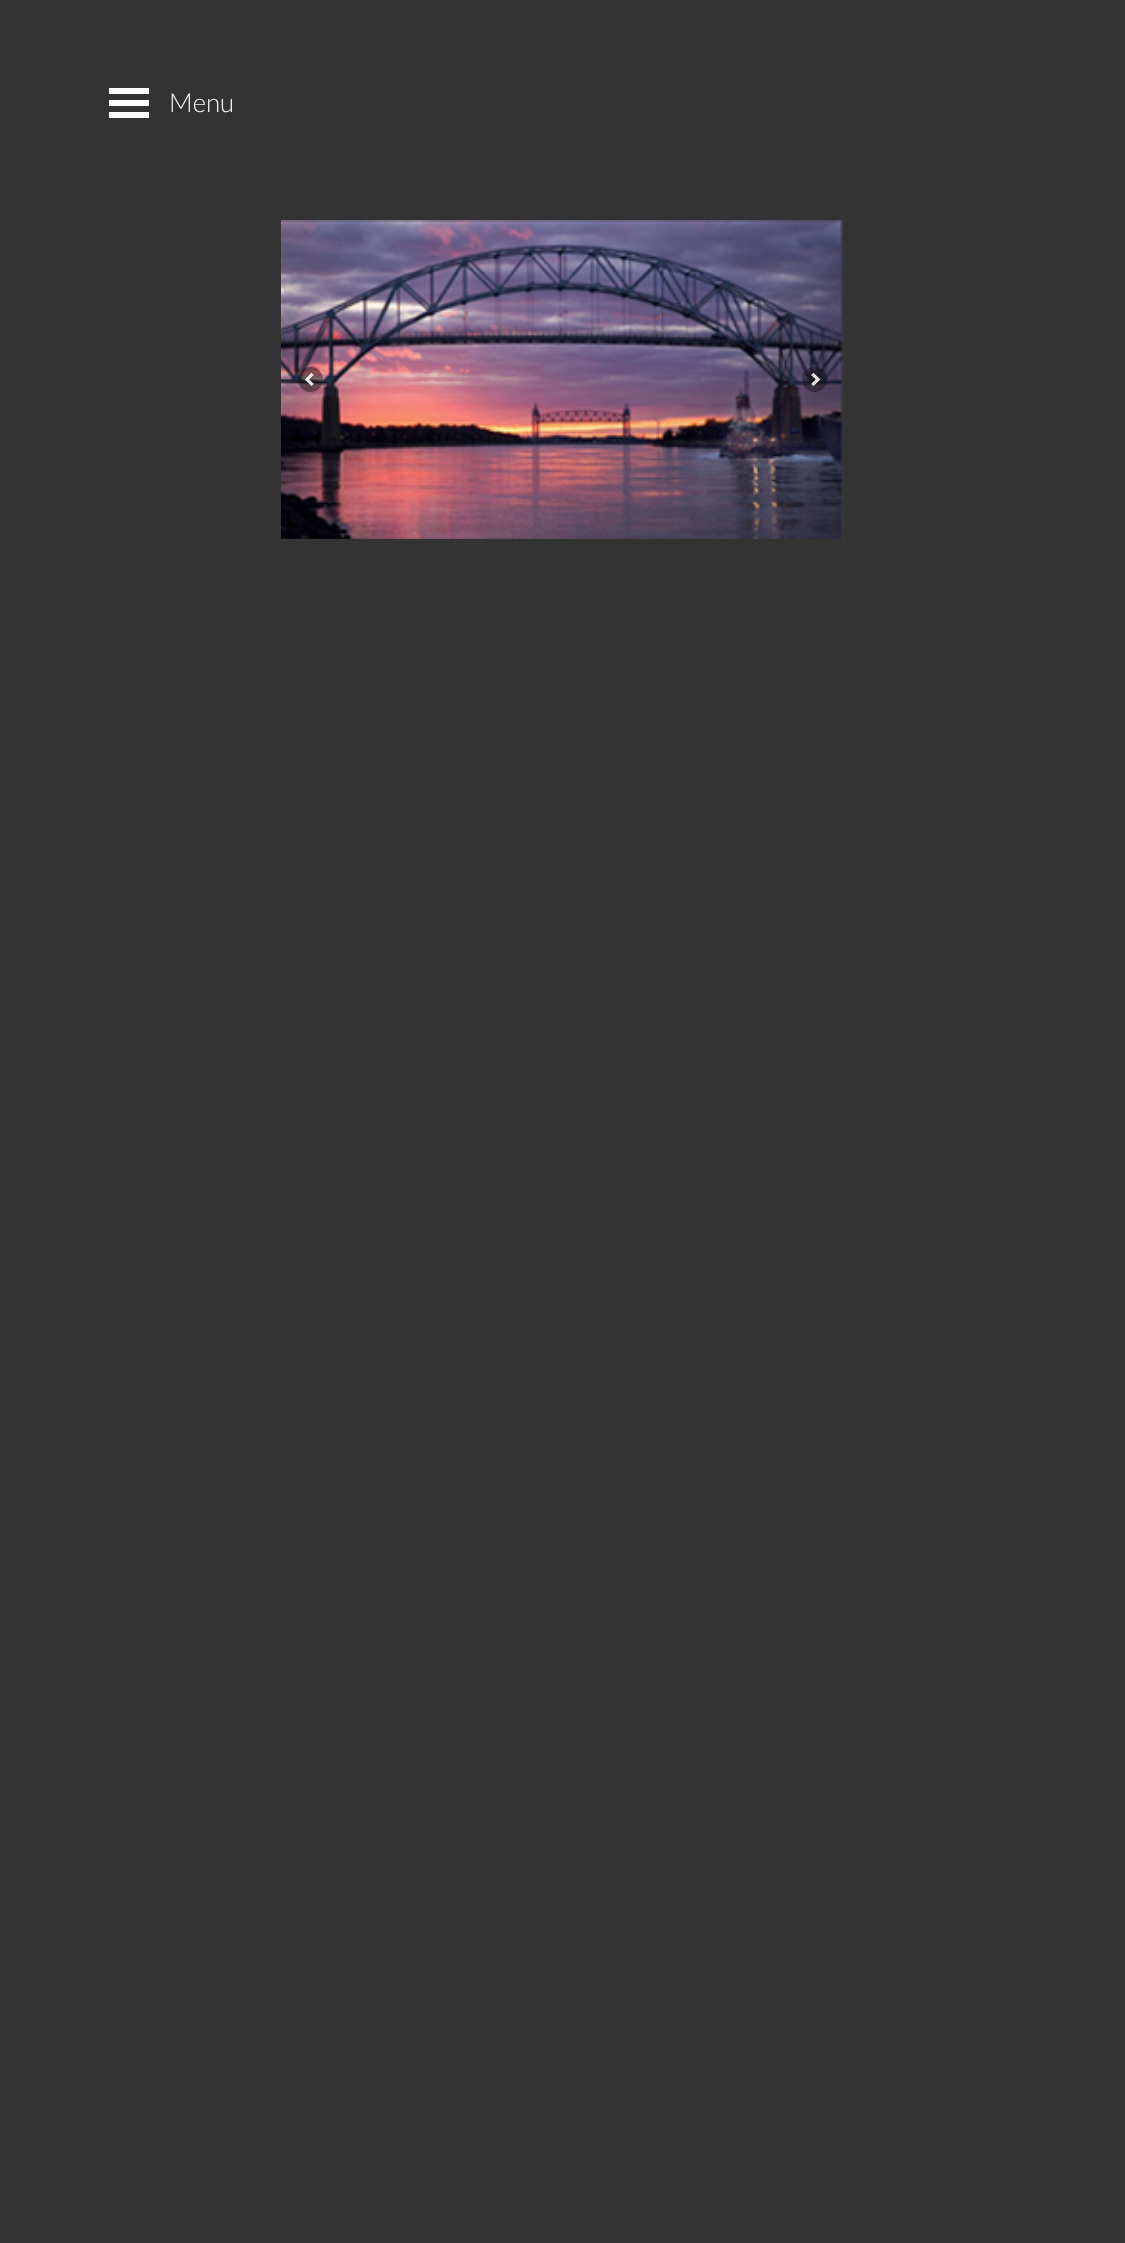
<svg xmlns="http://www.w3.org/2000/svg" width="1125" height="2243">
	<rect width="100%" height="100%" fill="#333333" />
	<rect x="109" y="112" width="40" height="6" fill="#FFFFFF" />
	<rect x="109" y="100" width="40" height="6" fill="#FFFFFF" />
	<rect x="109" y="88" width="40" height="6" fill="#FFFFFF" />
	<text x="169" y="112" font-family="Lato" font-size="26" font-weight="300" fill="#F7F7F7">Menu</text>
	<image x="281" y="220" width="563" height="319" href="assets/img1.png" />
	<image x="298" y="367" width="25" height="25" href="assets/img2.png" />
	<image x="802" y="367" width="25" height="25" href="assets/img3.png" />
</svg>
